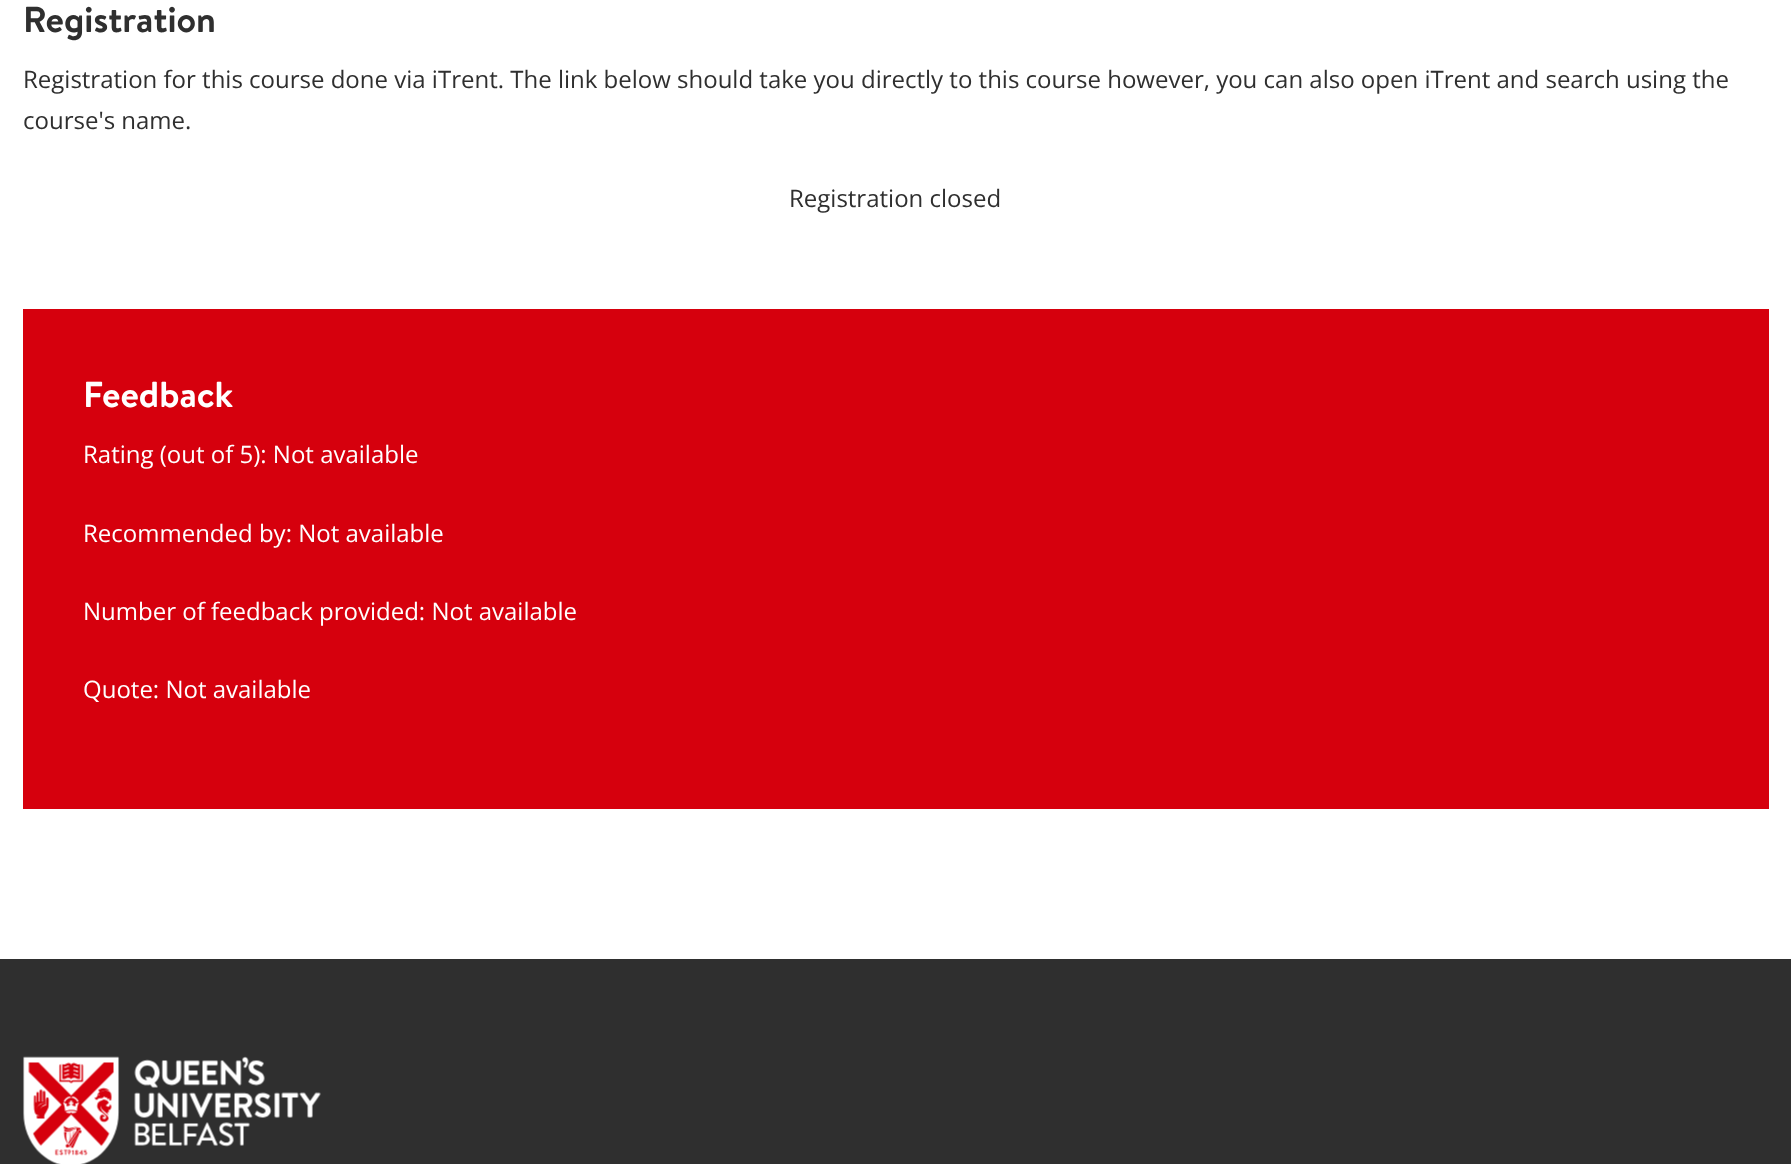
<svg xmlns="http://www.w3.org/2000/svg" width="1791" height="1164">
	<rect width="100%" height="100%" fill="#FFFFFF" />
	<text x="23" y="32" font-family="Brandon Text" font-size="36" font-weight="700" fill="#2F2F2F">Registration</text>
	<g font-family="Open Sans" font-size="24" fill="#2F2F2F">
		<text x="23" y="88">Registration for this course done via iTrent. The link below should take you directly to this course however, you can also open iTrent and search using the</text>
		<text x="23" y="129">course's name.</text>
		<text x="789" y="207">Registration closed</text>
	</g>
	<rect x="23" y="309" width="1746" height="500" fill="#D6000D" />
	<text x="83" y="407" font-family="Brandon Text" font-size="36" font-weight="700" fill="#FFFFFF">Feedback</text>
	<g font-family="Open Sans" font-size="24" fill="#FFFFFF">
		<text x="83" y="463">Rating (out of 5): Not available</text>
		<text x="83" y="542">Recommended by: Not available</text>
		<text x="83" y="620">Number of feedback provided: Not available</text>
		<text x="83" y="698">Quote: Not available</text>
	</g>
	<rect x="0" y="959" width="1791" height="205" fill="#2F2F2F" />
	<image x="23" y="1056" width="298" height="108" href="assets/img1.png" />
</svg>
